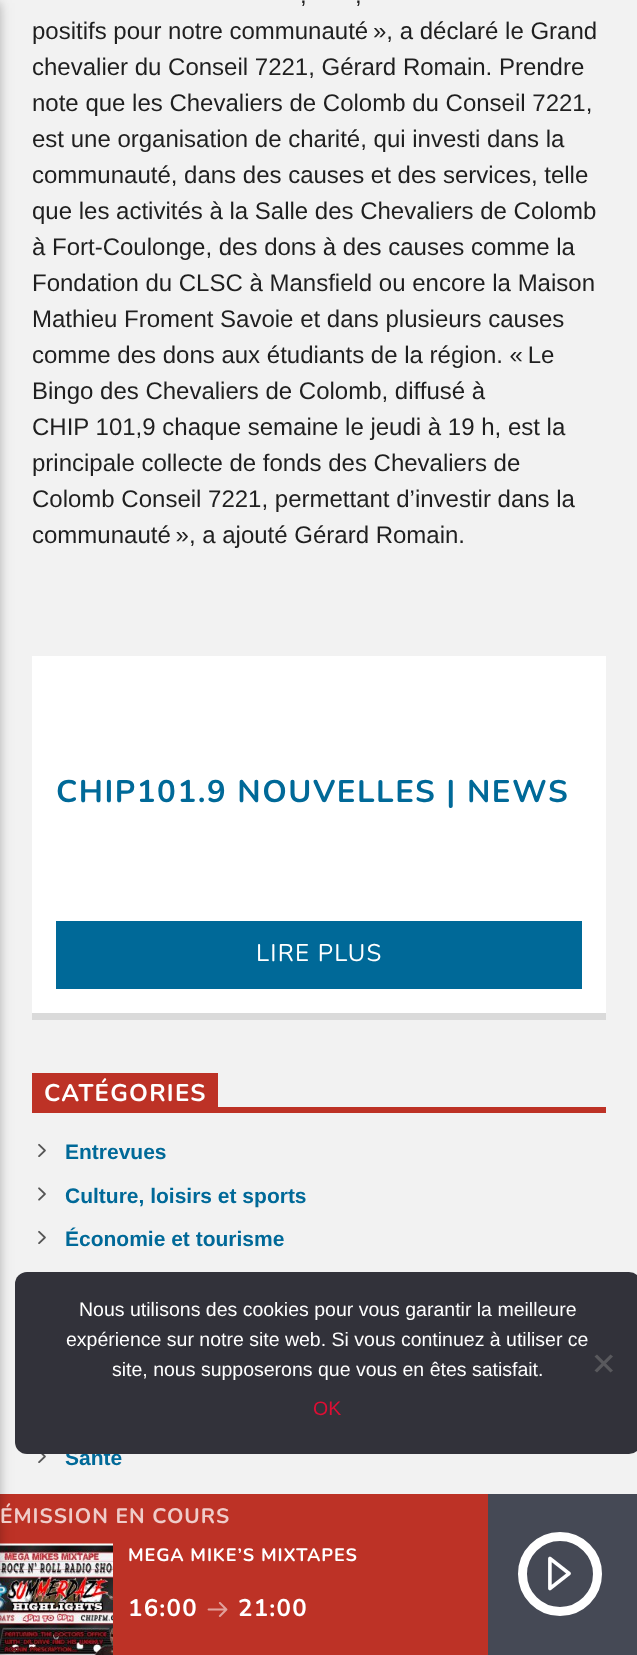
<svg xmlns="http://www.w3.org/2000/svg" width="637" height="1655">
	<rect width="100%" height="100%" fill="#F2F2F2" />
	<text x="65" y="1465" font-family="Liberation Sans" font-size="21" font-weight="700" fill="#006998">Santé</text>
	<rect x="15" y="1272" width="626" height="182" rx="12" fill="#32323A" />
	<rect x="0" y="1494" width="488" height="161" fill="#BD3226" />
	<image x="0" y="1543" width="113" height="112" href="assets/img4.png" />
	<rect x="-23" y="3" width="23" height="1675" fill="#000000" fill-opacity="0.12" filter="blur(7.5px)" />
	<rect x="-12" y="3" width="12" height="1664" fill="#000000" fill-opacity="0.16" filter="blur(4px)" />
	<g font-family="Liberation Sans" font-size="24" fill="#1F1F1F">
		<text x="300" y="3">,</text>
		<text x="355" y="3">,</text>
		<text x="32" y="39">positifs pour notre communauté », a déclaré le Grand</text>
		<text x="32" y="75">chevalier du Conseil 7221, Gérard Romain. Prendre</text>
		<text x="32" y="111">note que les Chevaliers de Colomb du Conseil 7221,</text>
		<text x="32" y="147">est une organisation de charité, qui investi dans la</text>
		<text x="32" y="183">communauté, dans des causes et des services, telle</text>
		<text x="32" y="219">que les activités à la Salle des Chevaliers de Colomb</text>
		<text x="32" y="255">à Fort-Coulonge, des dons à des causes comme la</text>
		<text x="32" y="291">Fondation du CLSC à Mansfield ou encore la Maison</text>
		<text x="32" y="327">Mathieu Froment Savoie et dans plusieurs causes</text>
		<text x="32" y="363">comme des dons aux étudiants de la région. « Le</text>
		<text x="32" y="399">Bingo des Chevaliers de Colomb, diffusé à</text>
		<text x="32" y="435">CHIP 101,9 chaque semaine le jeudi à 19 h, est la</text>
		<text x="32" y="471">principale collecte de fonds des Chevaliers de</text>
		<text x="32" y="507">Colomb Conseil 7221, permettant d’investir dans la</text>
		<text x="32" y="543">communauté », a ajouté Gérard Romain.</text>
	</g>
	<rect x="32" y="1013" width="574" height="7" fill="#DADADA" />
	<rect x="32" y="656" width="574" height="357" fill="#FFFFFF" />
	<text x="56" y="802" font-family="Nunito" font-size="31.25" font-weight="700" letter-spacing="1.55" fill="#006998">CHIP101.9 NOUVELLES | NEWS</text>
	<rect x="56" y="921" width="526" height="68" fill="#006998" />
	<text x="256" y="961" font-family="Nunito" font-size="24" letter-spacing="1.25" fill="#FFFFFF">LIRE PLUS</text>
	<rect x="32" y="1107" width="574" height="6" fill="#BD3226" />
	<rect x="32" y="1073" width="186" height="34" fill="#BD3226" />
	<text x="44" y="1101" font-family="Nunito" font-size="24" font-weight="700" letter-spacing="1.25" fill="#FFFFFF">CATÉGORIES</text>
	<image x="38" y="1143" width="8" height="14" href="assets/img1.png" />
	<text x="65" y="1159" font-family="Liberation Sans" font-size="21" font-weight="700" fill="#006998">Entrevues</text>
	<image x="38" y="1187" width="8" height="14" href="assets/img2.png" />
	<text x="65" y="1203" font-family="Liberation Sans" font-size="21" font-weight="700" fill="#006998">Culture, loisirs et sports</text>
	<image x="38" y="1230" width="8" height="14" href="assets/img1.png" />
	<text x="65" y="1246" font-family="Liberation Sans" font-size="21" font-weight="700" fill="#006998">Économie et tourisme</text>
	<image x="38" y="1454" width="8" height="9" href="assets/img3.png" />
	<g font-family="Liberation Sans" font-size="19.5" fill="#FFFFFF">
		<text x="79" y="1316">Nous utilisons des cookies pour vous garantir la meilleure</text>
		<text x="66" y="1346">expérience sur notre site web. Si vous continuez à utiliser ce</text>
		<text x="112" y="1376">site, nous supposerons que vous en êtes satisfait.</text>
	</g>
	<path d="M610.5 1354.5L613 1356.5L597 1372.5L594.5 1370.5Z" fill="#59595D" />
	<path d="M594.5 1356.5L597 1354.5L613 1370.5L610.5 1372.5Z" fill="#59595D" />
	<text x="313" y="1415" font-family="Liberation Sans" font-size="19.5" fill="#DD0E34">OK</text>
	<text x="0" y="1523" font-family="Nunito" font-size="20.9" font-weight="700" letter-spacing="1" fill="#EFCCC9">ÉMISSION EN COURS</text>
	<text x="128" y="1561" font-family="Nunito" font-size="18" font-weight="700" letter-spacing="0.9" fill="#FFFFFF">MEGA MIKE’S MIXTAPES</text>
	<text x="128" y="1616" font-family="Nunito" font-size="24" font-weight="700" letter-spacing="1.25" fill="#FFFFFF">16:00</text>
	<image x="207" y="1602" width="21" height="15" href="assets/img5.png" />
	<text x="238" y="1616" font-family="Nunito" font-size="24" font-weight="700" letter-spacing="1.25" fill="#FFFFFF">21:00</text>
	<rect x="488" y="1494" width="149" height="161" fill="#454955" />
	<circle cx="560" cy="1574" r="37.5" fill="none" stroke="#FFFFFF" stroke-width="9" />
	<image x="548" y="1556" width="23" height="35" href="assets/img6.png" />
</svg>
